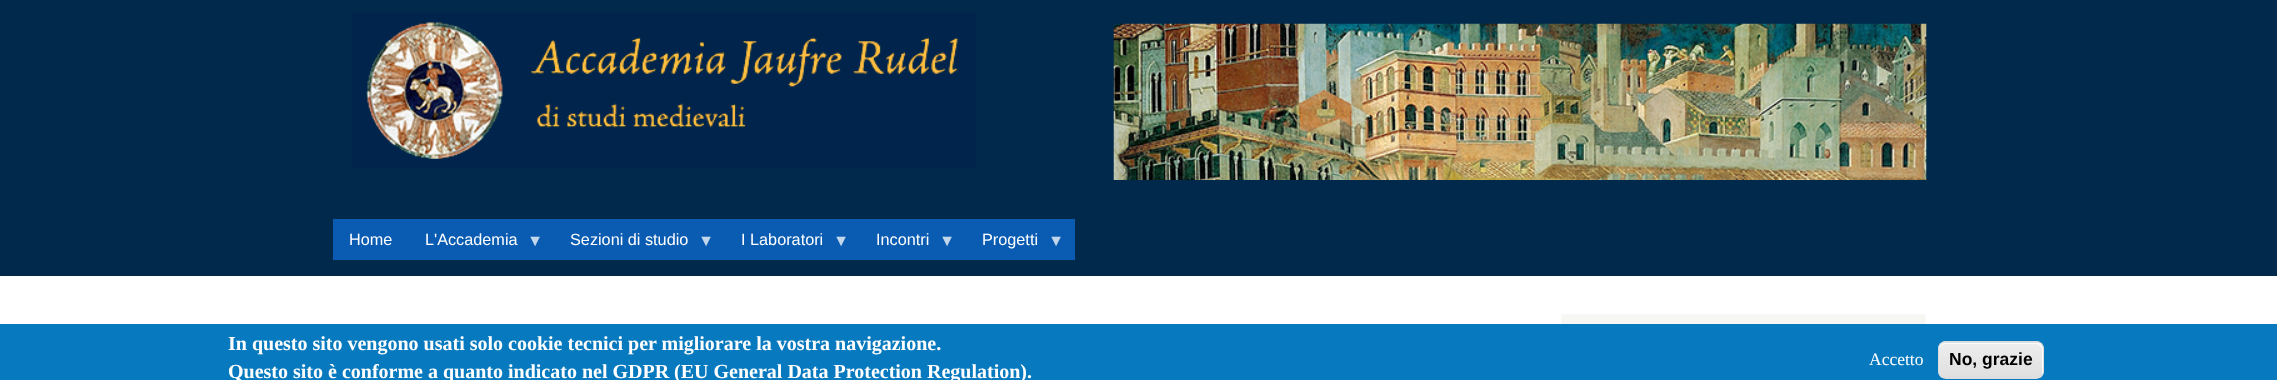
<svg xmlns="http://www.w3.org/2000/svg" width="2277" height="380">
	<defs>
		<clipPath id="clip1"><rect x="1938" y="341" width="106" height="38" rx="8" /></clipPath>
		<linearGradient id="g1" gradientUnits="userSpaceOnUse" x1="1991" y1="308" x2="1991" y2="343"><stop offset="0.05" stop-color="#EDEDED" /><stop offset="1" stop-color="#DFDFDF" /></linearGradient>
		<linearGradient id="g2" gradientUnits="userSpaceOnUse" x1="1991" y1="343" x2="1991" y2="378"><stop offset="0.05" stop-color="#EDEDED" /><stop offset="1" stop-color="#DFDFDF" /></linearGradient>
	</defs>
	<rect width="100%" height="100%" fill="#FFFFFF" />
	<rect x="0" y="0" width="2277" height="276" fill="#00294C" />
	<image x="352" y="13" width="624" height="155" href="assets/img1.png" />
	<image x="1113" y="23" width="814" height="157" href="assets/img2.png" />
	<rect x="333" y="219" width="742" height="41" fill="#095CB1" />
	<g font-family="Liberation Sans" font-size="16.25" fill="#FFFFFF">
		<text x="349" y="245">Home</text>
		<text x="425" y="245">L'Accademia</text>
	</g>
	<text x="527" y="246" font-family="Liberation Sans" font-size="16.25" fill="#C2D6EC">▼</text>
	<text x="570" y="245" font-family="Liberation Sans" font-size="16.25" fill="#FFFFFF">Sezioni di studio</text>
	<text x="698" y="246" font-family="Liberation Sans" font-size="16.25" fill="#C2D6EC">▼</text>
	<text x="741" y="245" font-family="Liberation Sans" font-size="16.25" fill="#FFFFFF">I Laboratori</text>
	<text x="833" y="246" font-family="Liberation Sans" font-size="16.25" fill="#C2D6EC">▼</text>
	<text x="876" y="245" font-family="Liberation Sans" font-size="16.25" fill="#FFFFFF">Incontri</text>
	<text x="939" y="246" font-family="Liberation Sans" font-size="16.25" fill="#C2D6EC">▼</text>
	<text x="982" y="245" font-family="Liberation Sans" font-size="16.25" fill="#FFFFFF">Progetti</text>
	<text x="1048" y="246" font-family="Liberation Sans" font-size="16.25" fill="#C2D6EC">▼</text>
	<rect x="1562" y="315" width="363" height="9" fill="#F6F6F2" />
	<rect x="1561.5" y="314.5" width="364" height="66" fill="none" stroke="#F9F9F9" />
	<rect x="0" y="324" width="2277" height="56" fill="#0779BF" />
	<g font-family="Liberation Serif" font-size="20" font-weight="700" fill="#FFFFFF">
		<text x="228" y="350">In questo sito vengono usati solo cookie tecnici per migliorare la vostra navigazione.</text>
		<text x="228" y="378">Questo sito è conforme a quanto indicato nel GDPR (EU General Data Protection Regulation).</text>
	</g>
	<text x="1869" y="365" font-family="Liberation Serif" font-size="17.5" fill="#FFFFFF">Accetto</text>
	<g clip-path="url(#clip1)">
		<rect x="1938" y="341" width="106" height="2" fill="url(#g1)" />
		<rect x="1938" y="343" width="106" height="35" fill="url(#g2)" />
	</g>
	<path d="M1945 344H2036C2040 344 2042 347 2042 350V372C2042 374 2042 375 2041 377C2042 376 2043 374 2043 372V349C2043 346 2040 343 2037 343H1945C1942 343 1939 346 1939 349V350C1939 347 1942 344 1945 344Z" fill="#FFFFFF" />
	<rect x="1938.5" y="341.5" width="105" height="37" rx="7.5" fill="none" stroke="#DCDCDC" />
	<text x="1949" y="365" font-family="Liberation Sans" font-size="17.5" font-weight="700" fill="#000000">No, grazie</text>
</svg>
